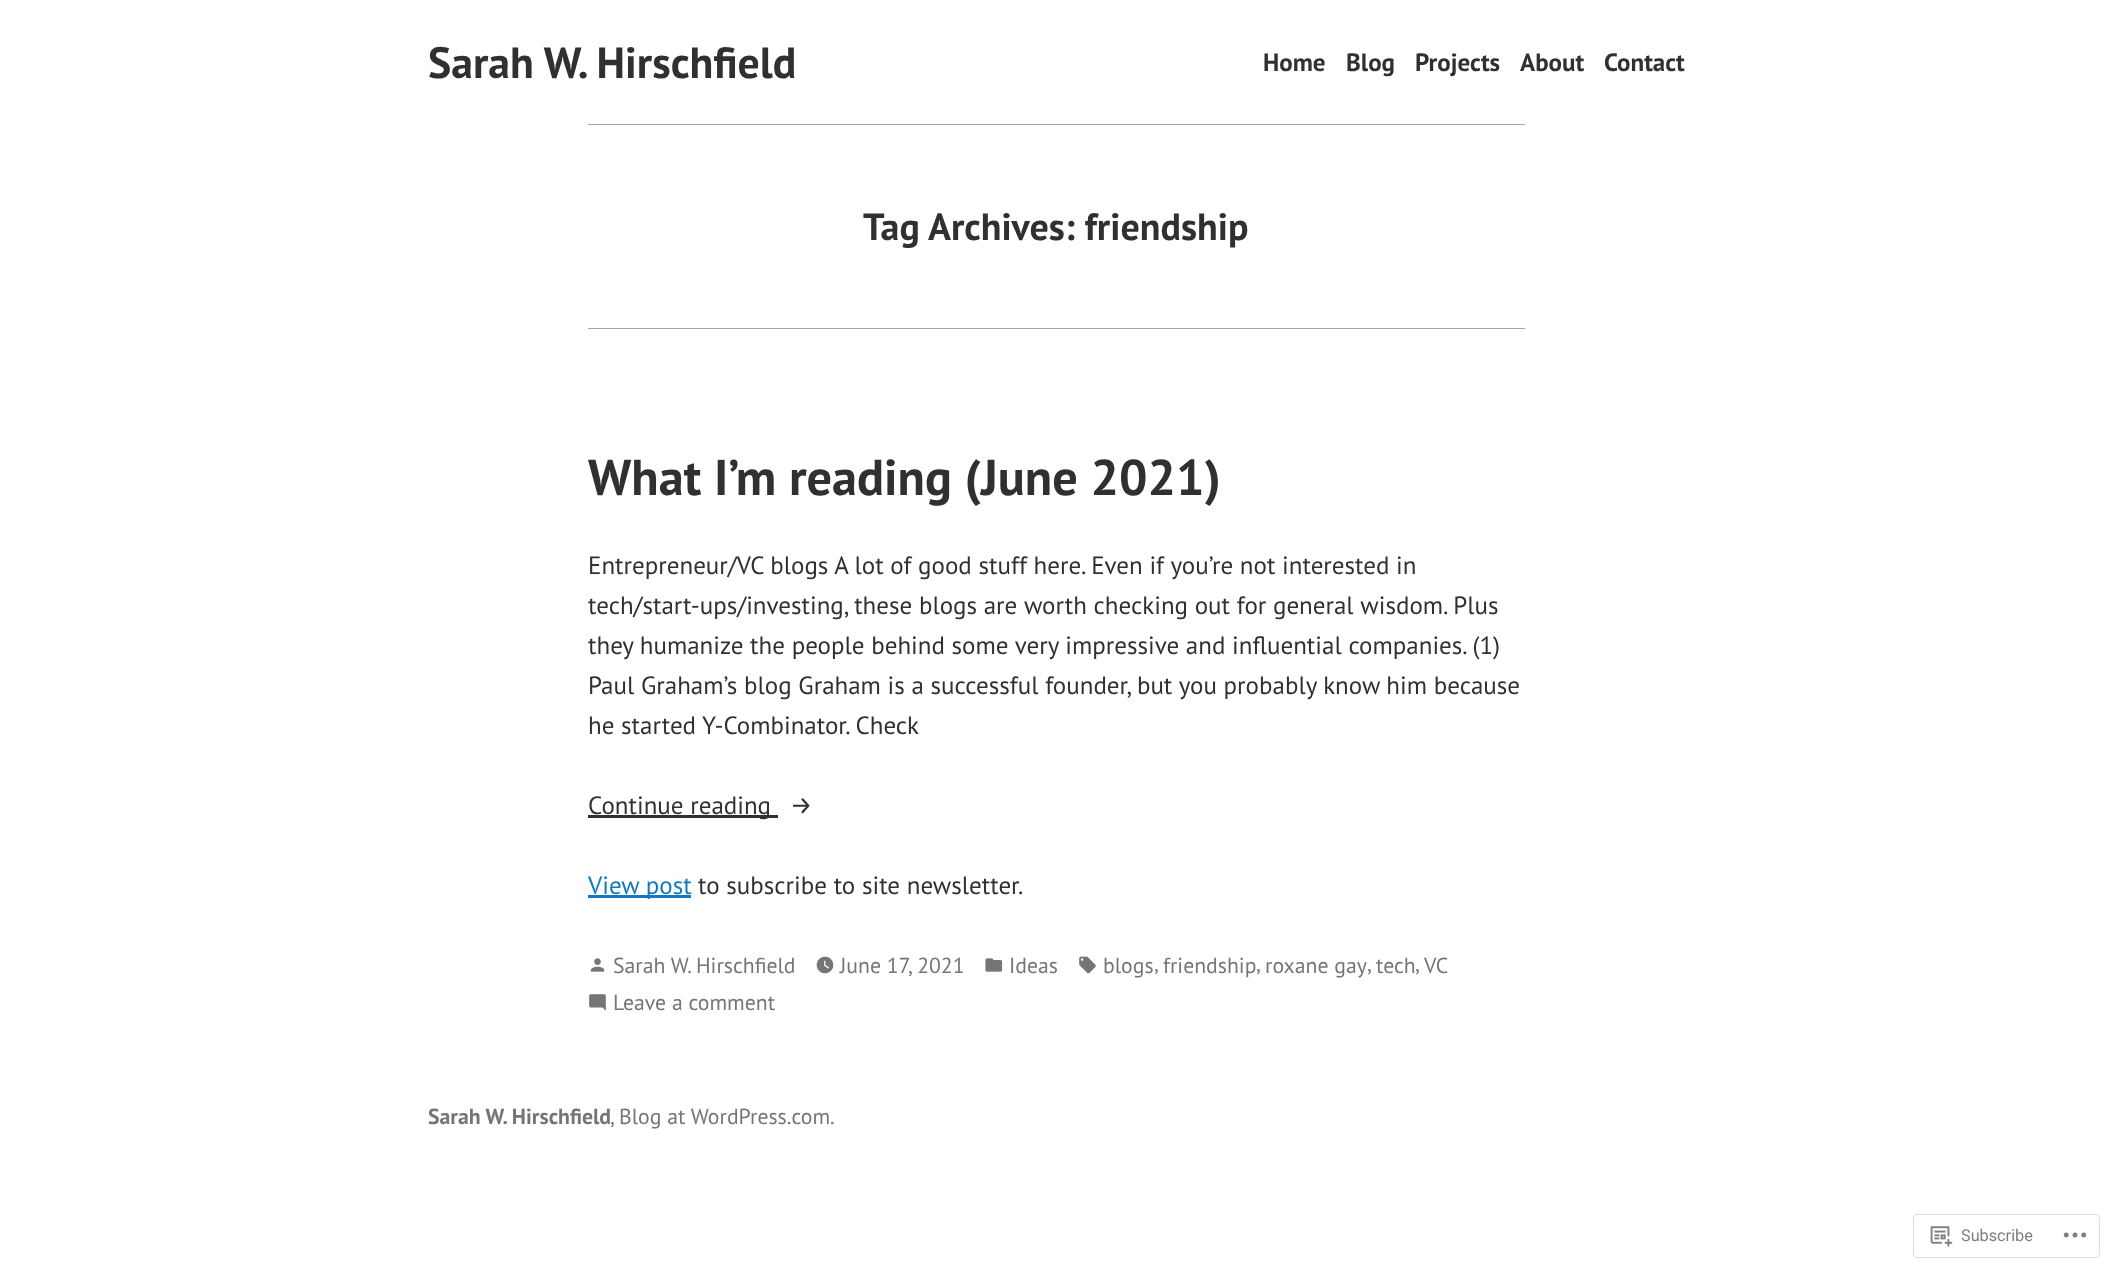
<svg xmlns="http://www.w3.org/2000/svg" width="2112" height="1269">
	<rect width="100%" height="100%" fill="#FFFFFF" />
	<text x="428" y="78" font-family="PT Sans" font-size="43.75" font-weight="700" fill="#303030">Sarah W. Hirschfield</text>
	<g font-family="PT Sans" font-size="25" font-weight="700" fill="#303030">
		<text x="1263" y="71">Home</text>
		<text x="1346" y="71">Blog</text>
		<text x="1415" y="71">Projects</text>
		<text x="1520" y="71">About</text>
		<text x="1604" y="71">Contact</text>
	</g>
	<rect x="588" y="124" width="937" height="1" fill="#A5A5A5" />
	<text x="863" y="240" font-family="PT Sans" font-size="38" font-weight="700" fill="#303030">Tag Archives: friendship</text>
	<rect x="588" y="328" width="937" height="1" fill="#A5A5A5" />
	<text x="588" y="495" font-family="PT Sans" font-size="50.25" font-weight="700" fill="#303030">What I’m reading (June 2021)</text>
	<g font-family="PT Sans" font-size="25" fill="#303030">
		<text x="588" y="574">Entrepreneur/VC blogs A lot of good stuff here. Even if you’re not interested in</text>
		<text x="588" y="614">tech/start-ups/investing, these blogs are worth checking out for general wisdom. Plus</text>
		<text x="588" y="654">they humanize the people behind some very impressive and influential companies. (1)</text>
		<text x="588" y="694">Paul Graham’s blog Graham is a successful founder, but you probably know him because</text>
		<text x="588" y="734">he started Y-Combinator. Check</text>
	</g>
	<rect x="588" y="815" width="190" height="3" fill="#303030" />
	<text x="588" y="814" font-family="PT Sans" font-size="25" fill="#303030">Continue reading</text>
	<text x="790" y="814" font-family="Fira Sans" font-size="25" fill="#303030">→</text>
	<rect x="588" y="895" width="103" height="3" fill="#1279BE" />
	<text x="588" y="894" font-family="PT Sans" font-size="25" fill="#1279BE">View post</text>
	<text x="698" y="894" font-family="PT Sans" font-size="25" fill="#303030">to subscribe to site newsletter.</text>
	<image x="590" y="958" width="15" height="14" href="assets/img1.png" />
	<text x="613" y="973" font-family="PT Sans" font-size="21.75" fill="#757575">Sarah W. Hirschfield</text>
	<image x="816" y="956" width="18" height="18" href="assets/img2.png" />
	<text x="840" y="973" font-family="PT Sans" font-size="21.75" fill="#757575">June 17, 2021</text>
	<image x="985" y="958" width="18" height="14" href="assets/img3.png" />
	<text x="1009" y="973" font-family="PT Sans" font-size="21.75" fill="#757575">Ideas</text>
	<image x="1079" y="956" width="17" height="18" href="assets/img4.png" />
	<g font-family="PT Sans" font-size="21.75" fill="#757575">
		<text x="1103" y="973">blogs</text>
		<text x="1154" y="971">,</text>
		<text x="1163" y="973">friendship</text>
		<text x="1256" y="971">,</text>
		<text x="1265" y="973">roxane gay</text>
		<text x="1367" y="971">,</text>
		<text x="1376" y="973">tech</text>
		<text x="1415" y="971">,</text>
		<text x="1424" y="973">VC</text>
	</g>
	<image x="589" y="994" width="17" height="17" href="assets/img5.png" />
	<text x="613" y="1010" font-family="PT Sans" font-size="21.75" fill="#757575">Leave a comment</text>
	<text x="428" y="1124" font-family="PT Sans" font-size="21.75" font-weight="700" fill="#757575">Sarah W. Hirschfield</text>
	<g font-family="PT Sans" font-size="21.75" fill="#757575">
		<text x="610" y="1124">,</text>
		<text x="619" y="1124">Blog at WordPress.com.</text>
	</g>
	<rect x="1913.5" y="1214.5" width="186" height="43" rx="3.5" fill="none" stroke="#DDDDDF" />
	<image x="1930" y="1226" width="23" height="21" href="assets/img6.png" />
	<text x="1961" y="1241" font-family="Roboto" font-size="16.25" fill="#7B7F85">Subscribe</text>
	<image x="2063" y="1232" width="24" height="6" href="assets/img7.png" />
</svg>
